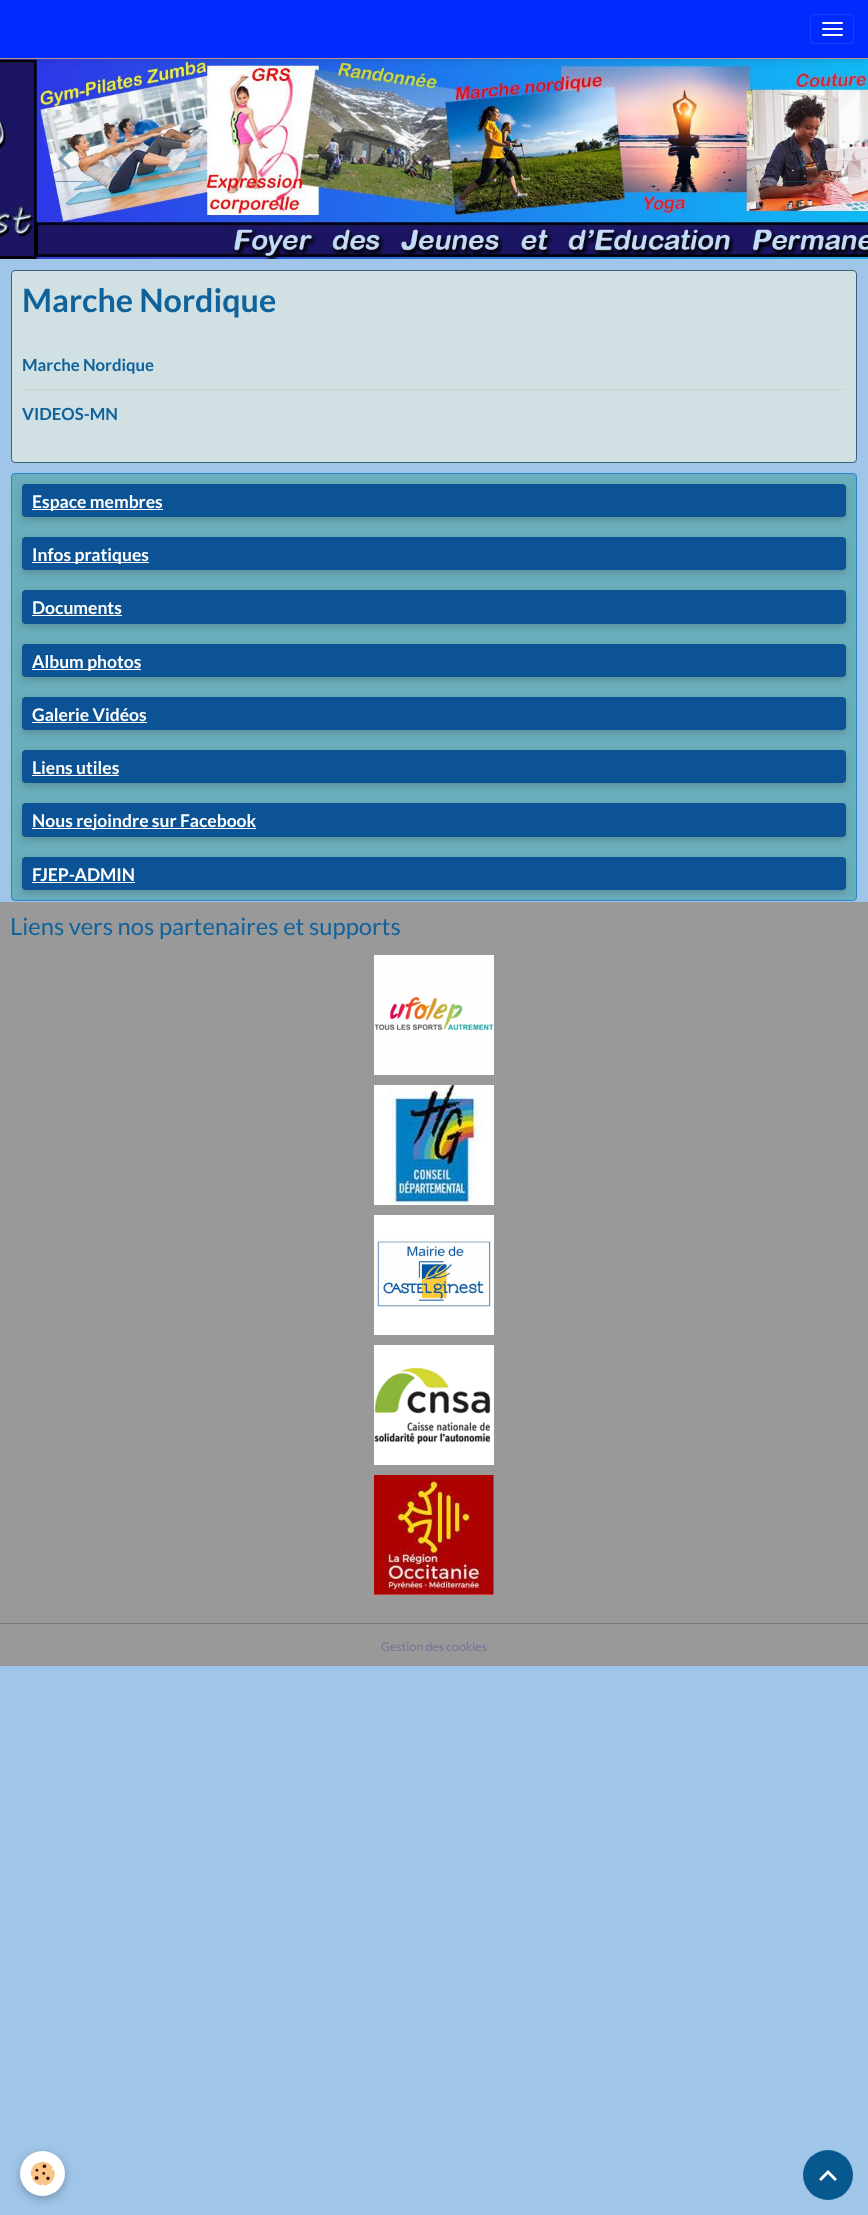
<svg xmlns="http://www.w3.org/2000/svg" width="868" height="2215">
	<rect width="100%" height="100%" fill="#9FC5E8" />
	<image x="0" y="59" width="868" height="200" href="assets/img1.png" />
	<rect x="0" y="3" width="868" height="59" fill="#14141C" fill-opacity="0.1" filter="blur(3.5px)" />
	<rect x="0" y="0" width="868" height="58" fill="#002BFF" />
	<rect x="0" y="58" width="868" height="1" fill="#BA9090" />
	<rect x="810.5" y="14.5" width="43" height="29" rx="3.5" fill="none" stroke="#1A40FF" />
	<rect x="822" y="22" width="21" height="2" rx="1" fill="#FFFFFF" />
	<rect x="822" y="28" width="21" height="2" rx="1" fill="#FFFFFF" />
	<rect x="822" y="34" width="21" height="2" rx="1" fill="#FFFFFF" />
	<path d="M71 151L63 159L71 167L68.5 169.5L58 159L68.5 148.5Z" fill="#16537E" fill-opacity="0.5" />
	<rect x="44" y="181" width="42" height="1" fill="#16537E" fill-opacity="0.5" />
	<path d="M799.5 148.5L810 159L799.5 169.5L797 167L805 159L797 151Z" fill="#16537E" fill-opacity="0.5" />
	<rect x="782" y="181" width="42" height="1" fill="#16537E" fill-opacity="0.5" />
	<rect x="11.5" y="270.5" width="845" height="192" rx="3.5" fill="#D0E0E3" stroke="#425F7A" />
	<text x="22" y="312" font-family="Lato" font-size="32.25" font-weight="700" fill="#10629B">Marche Nordique</text>
	<text x="22" y="371" font-family="Lato" font-size="16.75" font-weight="700" fill="#10629B">Marche Nordique</text>
	<rect x="22" y="389" width="824" height="1" fill="#D3D3C5" />
	<text x="22" y="420" font-family="Lato" font-size="16.75" font-weight="700" fill="#10629B">VIDEOS-MN</text>
	<rect x="11.5" y="473.5" width="845" height="427" rx="3.5" fill="#6AAEBB" stroke="#2986CC" />
	<rect x="22" y="487" width="824" height="33" rx="4" fill="#14141C" fill-opacity="0.2" filter="blur(3.5px)" />
	<rect x="22" y="484" width="824" height="33" rx="4" fill="#0B5394" />
	<rect x="32" y="509" width="131" height="1" fill="#FFFFFF" />
	<text x="32" y="508" font-family="Lato" font-size="17.5" font-weight="700" fill="#FFFFFF">Espace membres</text>
	<rect x="22" y="540" width="824" height="33" rx="4" fill="#14141C" fill-opacity="0.2" filter="blur(3.5px)" />
	<rect x="22" y="537" width="824" height="33" rx="4" fill="#0B5394" />
	<rect x="32" y="562" width="117" height="1" fill="#FFFFFF" />
	<text x="32" y="561" font-family="Lato" font-size="17.5" font-weight="700" fill="#FFFFFF">Infos pratiques</text>
	<rect x="22" y="593" width="824" height="34" rx="4" fill="#14141C" fill-opacity="0.2" filter="blur(3.5px)" />
	<rect x="22" y="590" width="824" height="34" rx="4" fill="#0B5394" />
	<text x="32" y="614" font-family="Lato" font-size="17.5" font-weight="700" fill="#FFFFFF">Documents</text>
	<rect x="32" y="615" width="90" height="1" fill="#FFFFFF" />
	<rect x="22" y="647" width="824" height="33" rx="4" fill="#14141C" fill-opacity="0.2" filter="blur(3.5px)" />
	<rect x="22" y="644" width="824" height="33" rx="4" fill="#0B5394" />
	<rect x="32" y="669" width="109" height="1" fill="#FFFFFF" />
	<text x="32" y="668" font-family="Lato" font-size="17.5" font-weight="700" fill="#FFFFFF">Album photos</text>
	<rect x="22" y="700" width="824" height="33" rx="4" fill="#14141C" fill-opacity="0.2" filter="blur(3.5px)" />
	<rect x="22" y="697" width="824" height="33" rx="4" fill="#0B5394" />
	<text x="32" y="721" font-family="Lato" font-size="17.5" font-weight="700" fill="#FFFFFF">Galerie Vidéos</text>
	<rect x="32" y="722" width="115" height="1" fill="#FFFFFF" />
	<rect x="22" y="753" width="824" height="33" rx="4" fill="#14141C" fill-opacity="0.2" filter="blur(3.5px)" />
	<rect x="22" y="750" width="824" height="33" rx="4" fill="#0B5394" />
	<text x="32" y="774" font-family="Lato" font-size="17.5" font-weight="700" fill="#FFFFFF">Liens utiles</text>
	<rect x="32" y="775" width="87" height="1" fill="#FFFFFF" />
	<rect x="22" y="806" width="824" height="34" rx="4" fill="#14141C" fill-opacity="0.2" filter="blur(3.5px)" />
	<rect x="22" y="803" width="824" height="34" rx="4" fill="#0B5394" />
	<rect x="32" y="828" width="224" height="1" fill="#FFFFFF" />
	<text x="32" y="827" font-family="Lato" font-size="17.5" font-weight="700" fill="#FFFFFF">Nous rejoindre sur Facebook</text>
	<rect x="0" y="902" width="868" height="764" fill="#999999" />
	<rect x="22" y="860" width="824" height="33" rx="4" fill="#14141C" fill-opacity="0.2" filter="blur(3.5px)" />
	<rect x="22" y="857" width="824" height="33" rx="4" fill="#0B5394" />
	<text x="32" y="881" font-family="Lato" font-size="17.5" font-weight="700" fill="#FFFFFF">FJEP-ADMIN</text>
	<rect x="32" y="882" width="103" height="1" fill="#FFFFFF" />
	<text x="10" y="935" font-family="Lato" font-size="23.75" fill="#10629B">Liens vers nos partenaires et supports</text>
	<image x="374" y="955" width="120" height="120" href="assets/img2.png" />
	<image x="374" y="1085" width="120" height="120" href="assets/img3.png" />
	<image x="374" y="1215" width="120" height="120" href="assets/img4.png" />
	<image x="374" y="1345" width="120" height="120" href="assets/img5.png" />
	<image x="374" y="1475" width="120" height="120" href="assets/img6.png" />
	<rect x="0" y="1623" width="868" height="1" fill="#7A7A7A" />
	<text x="381" y="1651" font-family="Lato" font-size="12.25" fill="#717498">Gestion des cookies</text>
	<rect x="20" y="2154" width="45" height="45" rx="22.5" fill="#000000" fill-opacity="0.24" filter="blur(5px)" />
	<circle cx="42.5" cy="2173.5" r="22.5" fill="#FFFFFF" />
	<image x="30" y="2161" width="25" height="25" href="assets/img7.png" />
	<circle cx="828" cy="2175" r="25" fill="#085890" />
	<path d="M828 2170L837 2179L835 2181L828 2174L821 2181L819 2179Z" fill="#FFFFFF" />
</svg>
